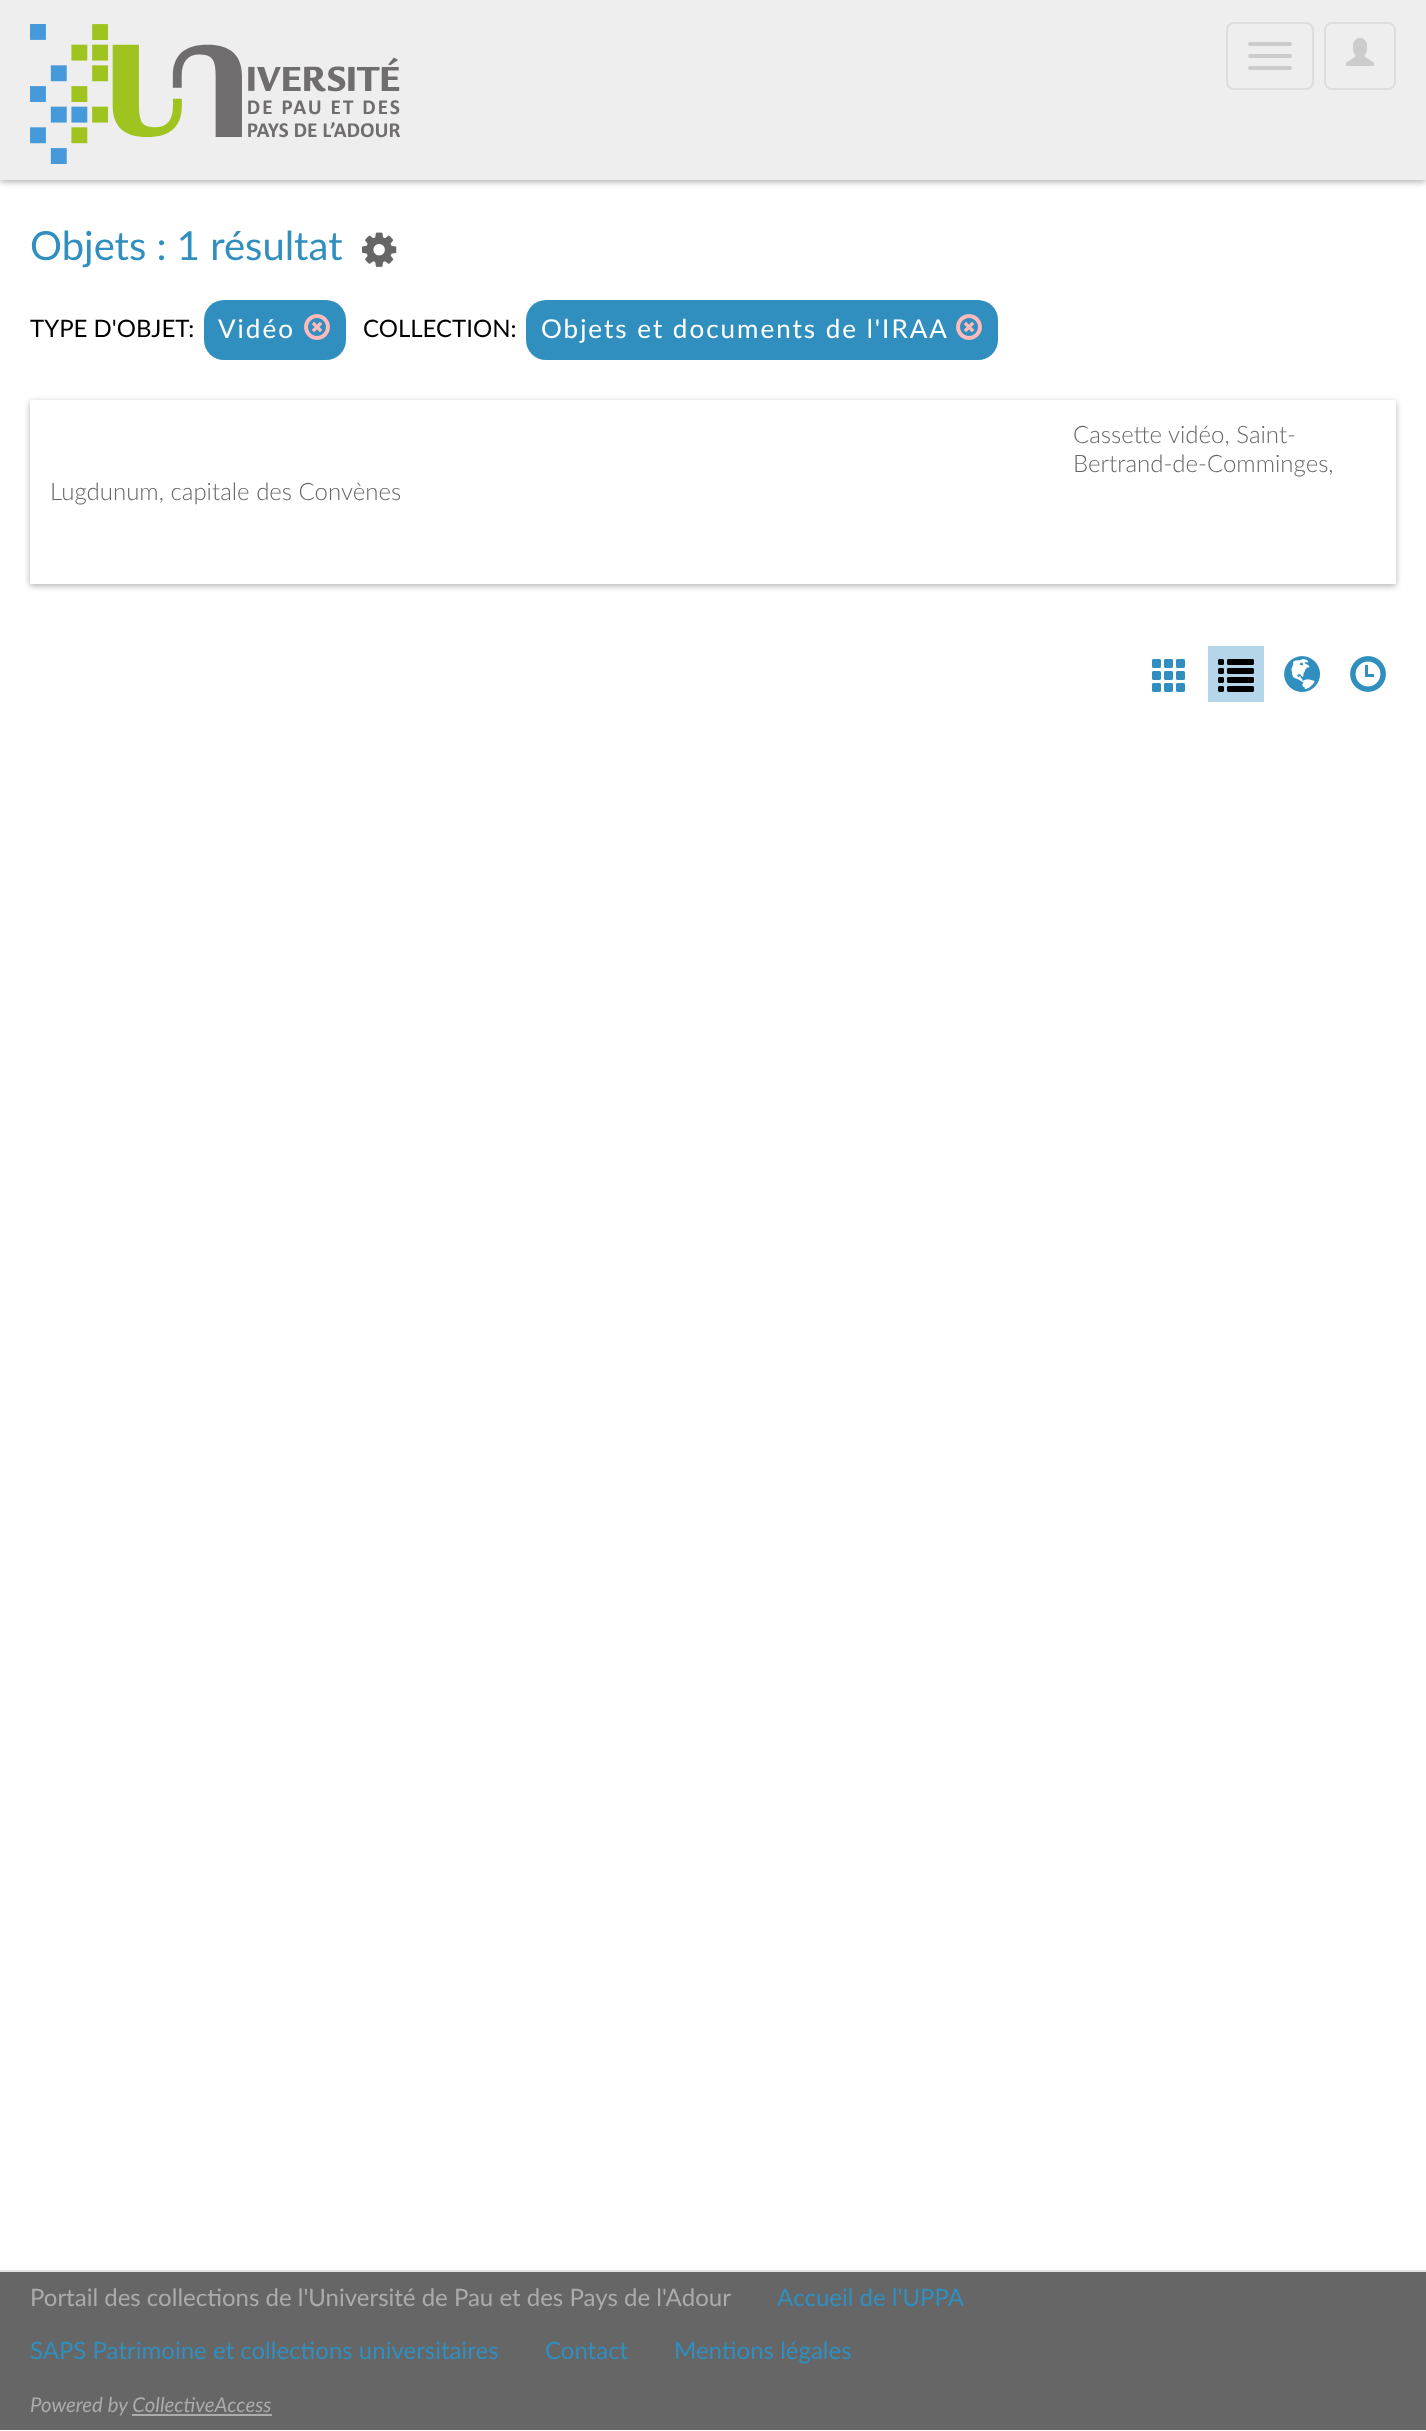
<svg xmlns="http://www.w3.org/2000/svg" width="1426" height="2431">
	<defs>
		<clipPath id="clip1"><path d="M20 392H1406V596H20ZM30 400H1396V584H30Z" clip-rule="evenodd" /></clipPath>
	</defs>
	<rect width="100%" height="100%" fill="#FFFFFF" />
	<rect x="0" y="0" width="1426" height="182" fill="#000000" fill-opacity="0.3" filter="blur(3px)" />
	<rect x="0" y="0" width="1426" height="180" fill="#EEEEEE" />
	<image x="30" y="24" width="370" height="140" href="assets/img1.png" />
	<rect x="1227" y="23" width="86" height="66" rx="7" fill="none" stroke="#DDDDDD" stroke-width="2" />
	<rect x="1248" y="42" width="44" height="4" rx="2" fill="#CCCCCC" />
	<rect x="1248" y="54" width="44" height="4" rx="2" fill="#CCCCCC" />
	<rect x="1248" y="66" width="44" height="4" rx="2" fill="#CCCCCC" />
	<rect x="1325" y="23" width="70" height="66" rx="7" fill="none" stroke="#DDDDDD" stroke-width="2" />
	<image x="1346" y="38" width="28" height="28" href="assets/img2.png" />
	<text x="30" y="260" font-family="Lato" font-size="40" fill="#318FBF">Objets : 1 résultat</text>
	<image x="362" y="232" width="35" height="35" href="assets/img3.png" />
	<text x="30" y="337" font-family="Lato" font-size="24" fill="#000000">TYPE D'OBJET:</text>
	<rect x="204" y="300" width="142" height="60" rx="20" fill="#318FBF" />
	<text x="218" y="338" font-family="Lato" font-size="26" letter-spacing="2" fill="#FFFFFF">Vidéo</text>
	<image x="304" y="314" width="26" height="26" href="assets/img4.png" />
	<text x="363" y="337" font-family="Lato" font-size="24" fill="#000000">COLLECTION:</text>
	<rect x="526" y="300" width="472" height="60" rx="20" fill="#318FBF" />
	<text x="541" y="338" font-family="Lato" font-size="26" letter-spacing="2" fill="#FFFFFF">Objets et documents de l'IRAA</text>
	<image x="956" y="314" width="26" height="26" href="assets/img4.png" />
	<g clip-path="url(#clip1)">
		<rect x="30" y="402" width="1366" height="184" fill="#000000" fill-opacity="0.3" filter="blur(3px)" />
	</g>
	<g font-family="Lato" font-size="24" font-weight="300" fill="#666666">
		<text x="1073" y="443">Cassette vidéo, Saint-</text>
		<text x="1073" y="472">Bertrand-de-Comminges,</text>
		<text x="50" y="500">Lugdunum, capitale des Convènes</text>
	</g>
	<image x="1152" y="659" width="33" height="33" href="assets/img5.png" />
	<rect x="1208" y="646" width="56" height="56" fill="#B4D6E8" />
	<image x="1218" y="659" width="36" height="33" href="assets/img6.png" />
	<image x="1284" y="656" width="36" height="36" href="assets/img7.png" />
	<image x="1350" y="656" width="36" height="36" href="assets/img8.png" />
	<rect x="0" y="2272" width="1426" height="158" fill="#666666" />
	<rect x="0" y="2270" width="1426" height="2" fill="#E3E3E3" />
	<text x="30" y="2306" font-family="Lato" font-size="24" fill="#ABABAB">Portail des collections de l'Université de Pau et des Pays de l'Adour</text>
	<g font-family="Lato" font-size="24" fill="#318FBF">
		<text x="777" y="2306">Accueil de l'UPPA</text>
		<text x="30" y="2359">SAPS Patrimoine et collections universitaires</text>
		<text x="545" y="2359">Contact</text>
		<text x="674" y="2359">Mentions légales</text>
	</g>
	<text x="30" y="2412" font-family="Lato" font-size="20.4" font-style="italic" fill="#ABABAB">Powered by CollectiveAccess</text>
	<rect x="132" y="2414" width="140" height="2" fill="#ABABAB" />
</svg>
